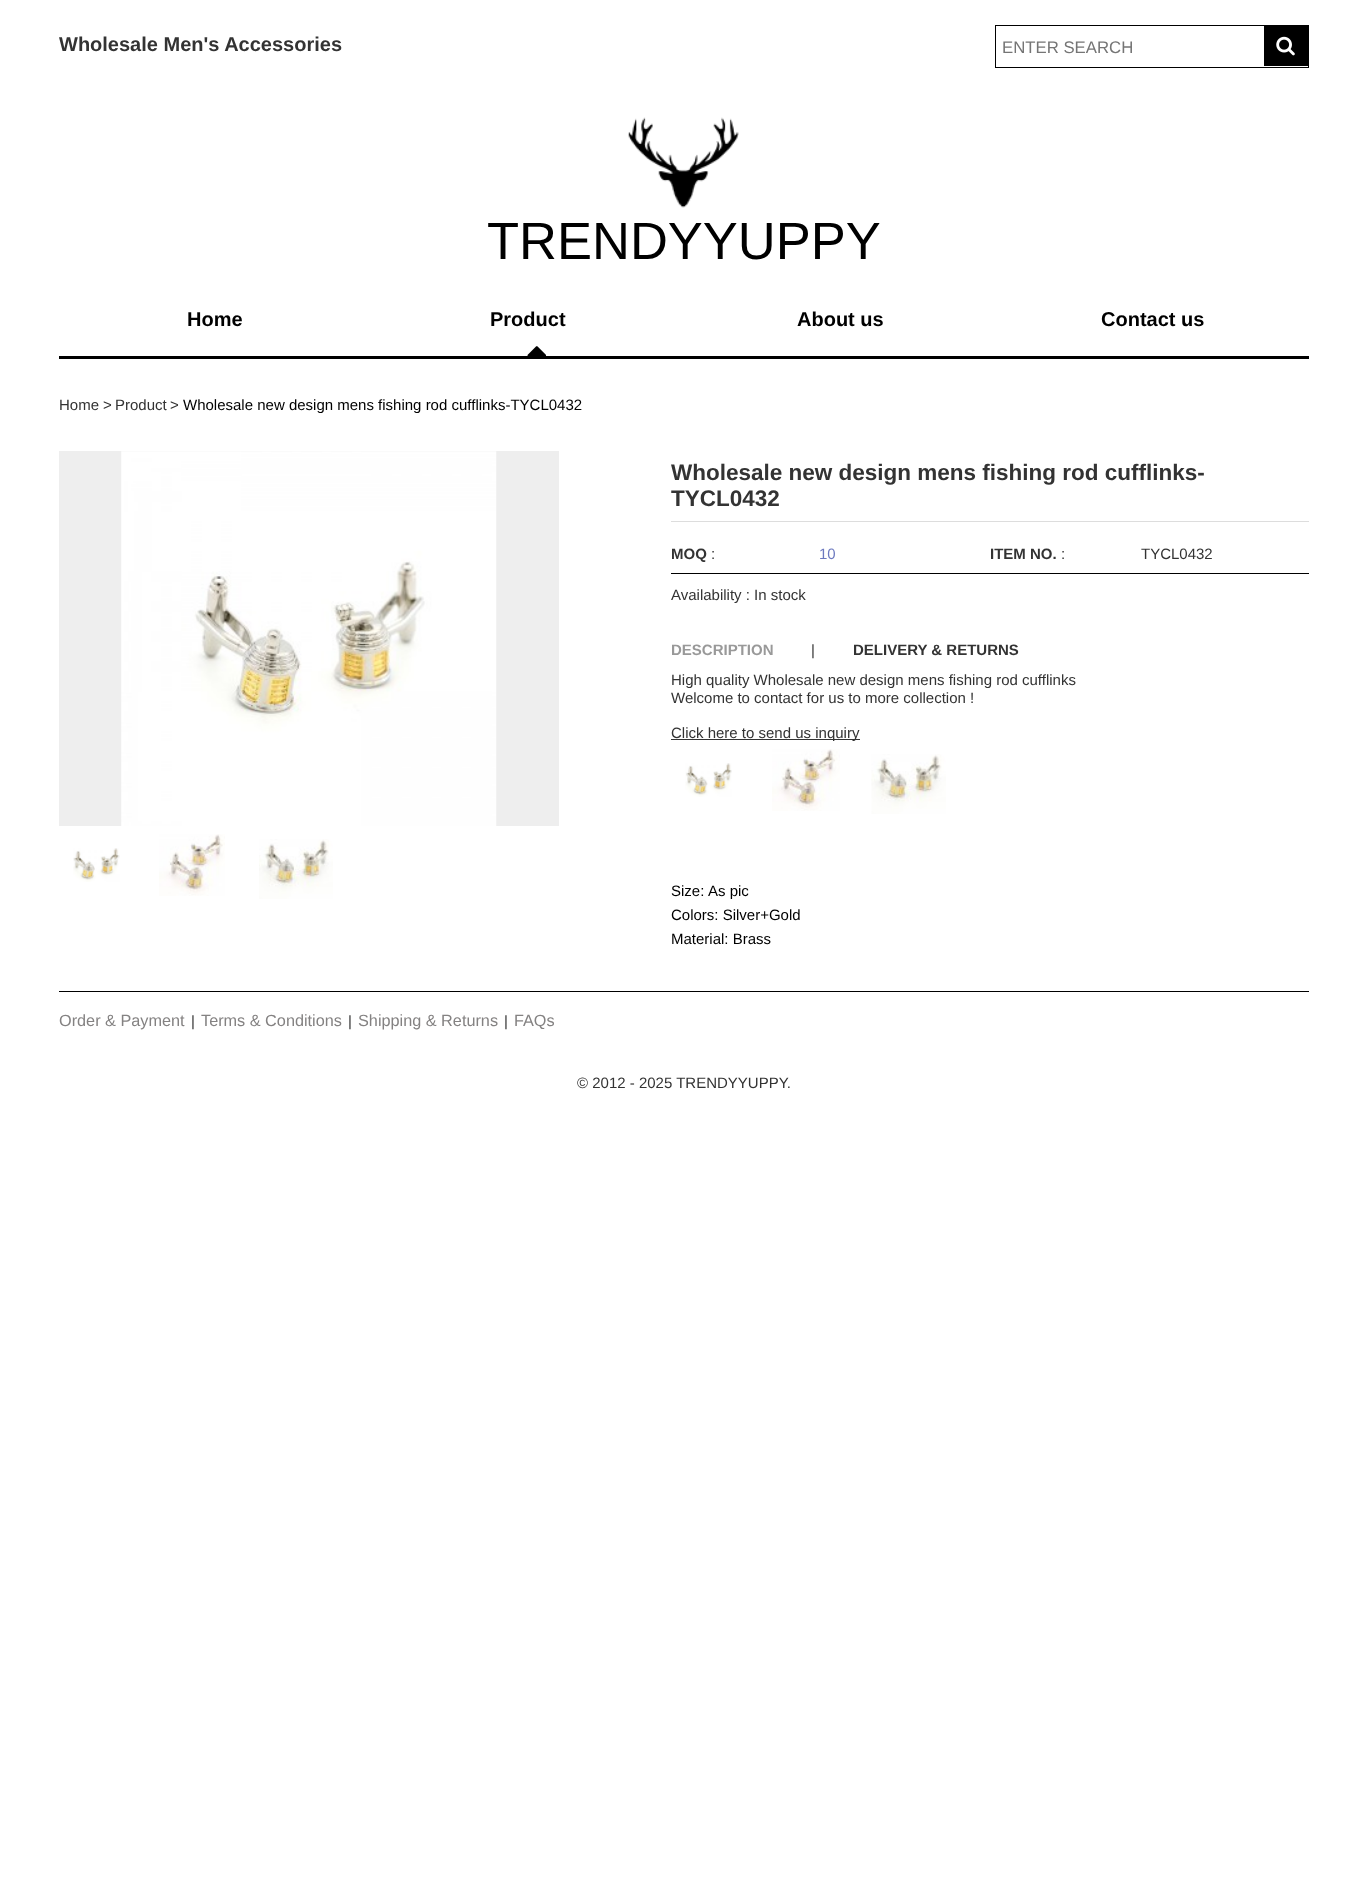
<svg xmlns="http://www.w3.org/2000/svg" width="1367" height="1894">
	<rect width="100%" height="100%" fill="#FFFFFF" />
	<text x="59" y="51" font-family="Liberation Sans" font-size="20" font-weight="700" fill="#333333">Wholesale Men's Accessories</text>
	<rect x="995.5" y="25.5" width="313" height="42" fill="none" stroke="#000000" />
	<text x="1002" y="53" font-family="Liberation Sans" font-size="16.75" fill="#757575">ENTER SEARCH</text>
	<rect x="1264" y="26" width="44" height="40" fill="#000000" />
	<image x="1276" y="36" width="19" height="20" href="assets/img1.png" />
	<image x="628" y="117" width="111" height="91" href="assets/img2.png" />
	<text x="487" y="259" font-family="Liberation Sans" font-size="52.5" fill="#000000">TRENDYYUPPY</text>
	<rect x="59" y="356" width="1250" height="3" fill="#000000" />
	<g font-family="Liberation Sans" font-size="20" font-weight="700" fill="#000000">
		<text x="187" y="326">Home</text>
		<text x="490" y="326">Product</text>
		<text x="797" y="326">About us</text>
		<text x="1101" y="326">Contact us</text>
	</g>
	<image x="527" y="346" width="20" height="10" href="assets/img3.png" />
	<g font-family="Liberation Sans" font-size="15" fill="#333333">
		<text x="59" y="410">Home</text>
		<text x="103" y="410">&gt;</text>
		<text x="115" y="410">Product</text>
		<text x="170" y="410">&gt;</text>
	</g>
	<text x="183" y="410" font-family="Liberation Sans" font-size="15" fill="#000000">Wholesale new design mens fishing rod cufflinks-TYCL0432</text>
	<rect x="59" y="451" width="500" height="375" fill="#EEEEEE" />
	<image x="121" y="451" width="376" height="375" href="assets/img4.png" />
	<image x="73" y="848" width="47" height="34" href="assets/img5.png" />
	<image x="159" y="834" width="66" height="62" href="assets/img6.png" />
	<image x="259" y="839" width="74" height="60" href="assets/img7.png" />
	<rect x="671" y="521" width="638" height="1" fill="#DDDDDD" />
	<g font-family="Liberation Sans" font-size="22.5" font-weight="700" fill="#333333">
		<text x="671" y="480">Wholesale new design mens fishing rod cufflinks-</text>
		<text x="671" y="506">TYCL0432</text>
	</g>
	<rect x="671" y="573" width="638" height="1" fill="#000000" />
	<text x="671" y="559" font-family="Liberation Sans" font-size="15" font-weight="700" fill="#333333">MOQ</text>
	<text x="711" y="559" font-family="Liberation Sans" font-size="15" fill="#333333">:</text>
	<text x="819" y="559" font-family="Liberation Sans" font-size="15" fill="#6C79BF">10</text>
	<text x="990" y="559" font-family="Liberation Sans" font-size="15" font-weight="700" fill="#333333">ITEM NO.</text>
	<g font-family="Liberation Sans" font-size="15" fill="#333333">
		<text x="1061" y="559">:</text>
		<text x="1141" y="559">TYCL0432</text>
		<text x="671" y="600">Availability : In stock</text>
	</g>
	<text x="671" y="655" font-family="Liberation Sans" font-size="15" font-weight="700" fill="#999999">DESCRIPTION</text>
	<text x="811" y="655" font-family="Liberation Sans" font-size="15" fill="#333333">|</text>
	<text x="853" y="655" font-family="Liberation Sans" font-size="15" font-weight="700" fill="#333333">DELIVERY &amp; RETURNS</text>
	<g font-family="Liberation Sans" font-size="15" fill="#333333">
		<text x="671" y="685">High quality Wholesale new design mens fishing rod cufflinks</text>
		<text x="671" y="703">Welcome to contact for us to more collection !</text>
	</g>
	<rect x="671" y="739" width="189" height="1" fill="#333333" />
	<text x="671" y="738" font-family="Liberation Sans" font-size="15" fill="#333333">Click here to send us inquiry</text>
	<image x="685" y="763" width="47" height="34" href="assets/img8.png" />
	<image x="772" y="749" width="68" height="62" href="assets/img9.png" />
	<image x="871" y="754" width="75" height="60" href="assets/img10.png" />
	<g font-family="Liberation Sans" font-size="15" fill="#000000">
		<text x="671" y="896">Size:</text>
		<text x="708" y="896">As pic</text>
		<text x="671" y="920">Colors: Silver+Gold</text>
		<text x="671" y="944">Material: Brass</text>
	</g>
	<rect x="59" y="991" width="1250" height="1" fill="#000000" />
	<text x="59" y="1026" font-family="Liberation Sans" font-size="16.25" fill="#848282">Order &amp; Payment</text>
	<text x="191" y="1026" font-family="Liberation Sans" font-size="15" fill="#333333">|</text>
	<text x="201" y="1026" font-family="Liberation Sans" font-size="16.25" fill="#848282">Terms &amp; Conditions</text>
	<text x="348" y="1026" font-family="Liberation Sans" font-size="15" fill="#333333">|</text>
	<text x="358" y="1026" font-family="Liberation Sans" font-size="16.25" fill="#848282">Shipping &amp; Returns</text>
	<text x="504" y="1026" font-family="Liberation Sans" font-size="15" fill="#333333">|</text>
	<text x="514" y="1026" font-family="Liberation Sans" font-size="16.25" fill="#848282">FAQs</text>
	<text x="577" y="1088" font-family="Liberation Sans" font-size="15" fill="#333333">© 2012 - 2025 TRENDYYUPPY.</text>
</svg>
